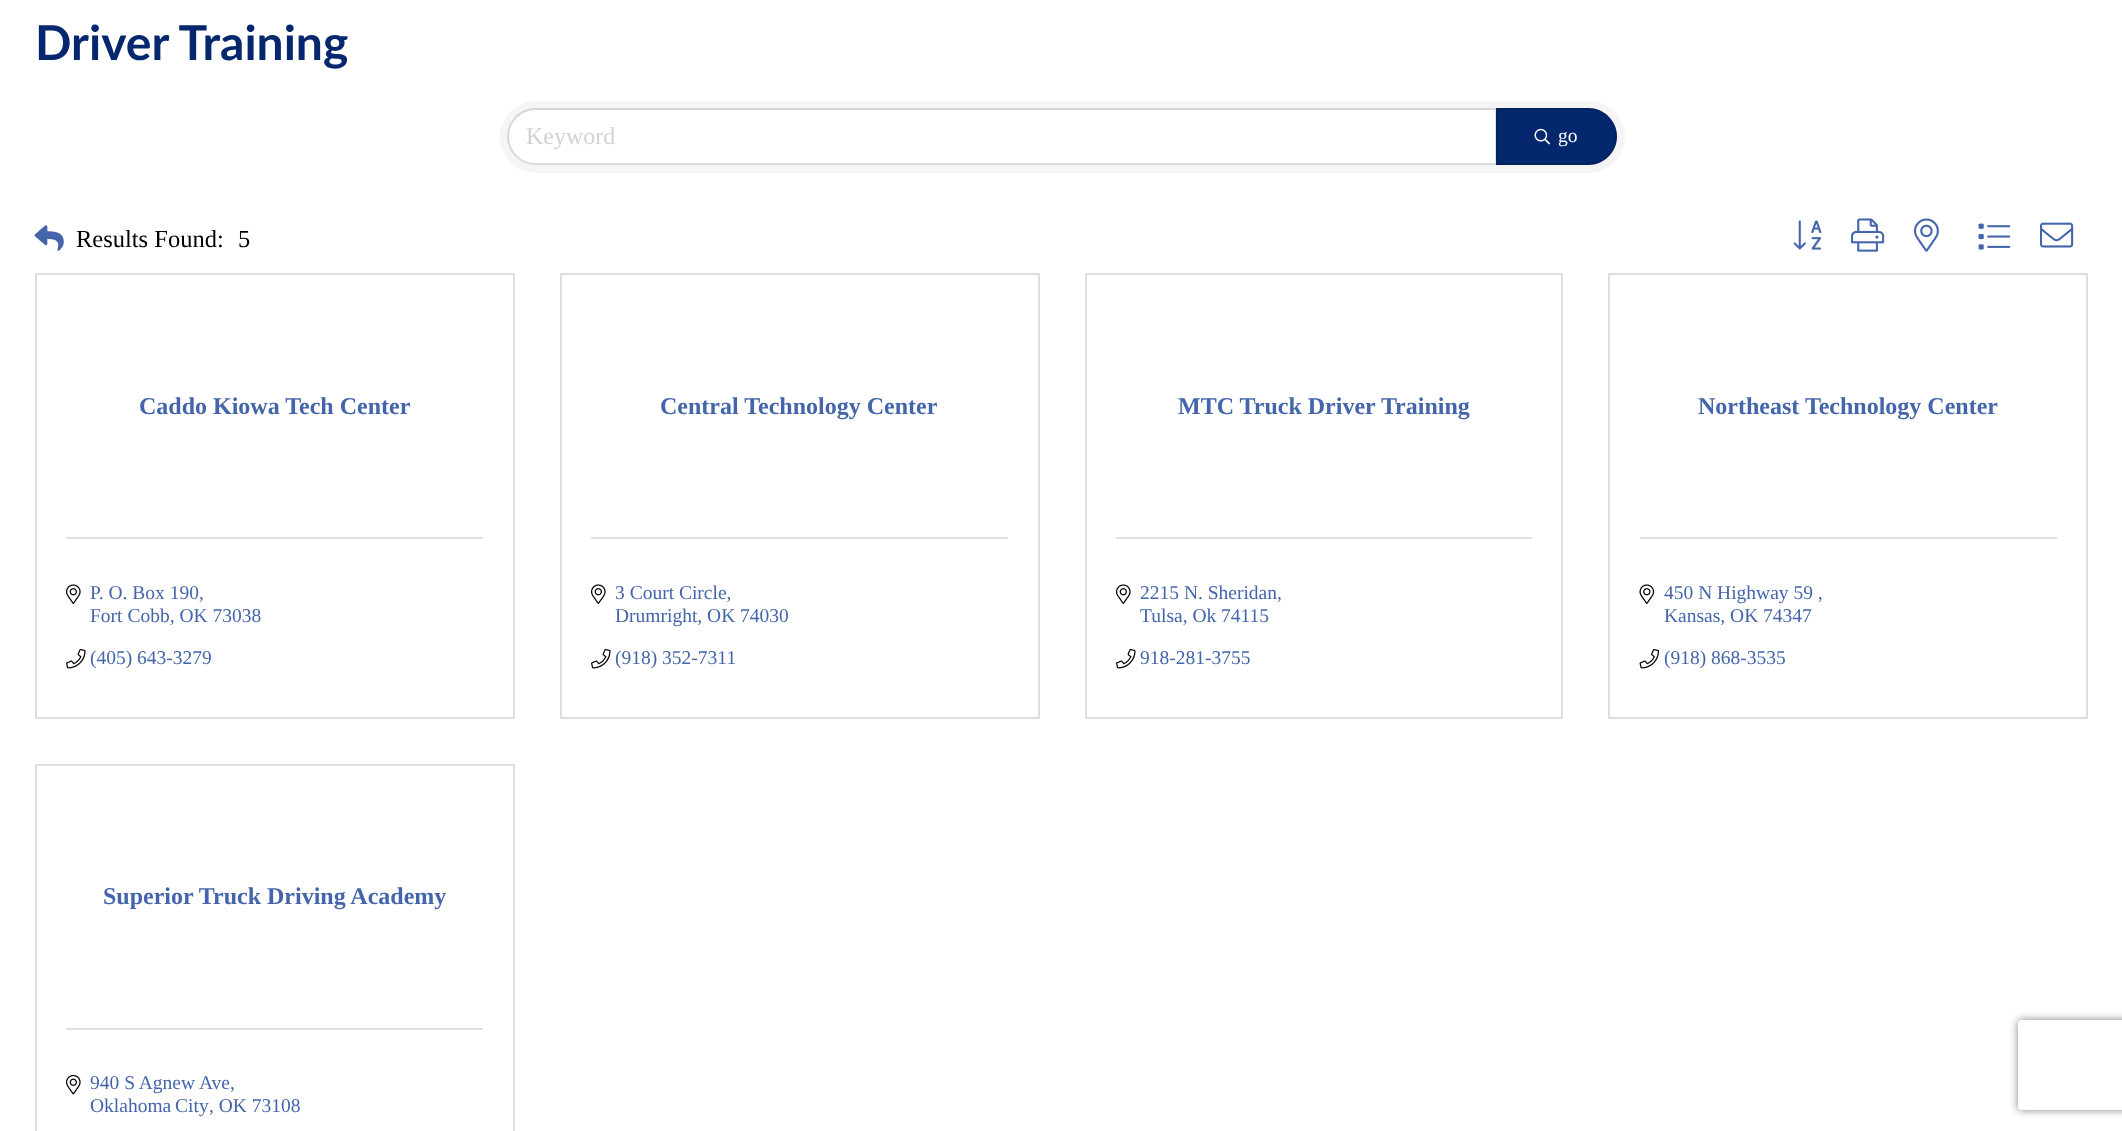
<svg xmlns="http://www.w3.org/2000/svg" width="2122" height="1131">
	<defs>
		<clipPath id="clip1"><path d="M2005 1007H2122V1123H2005ZM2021 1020H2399C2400.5 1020 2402 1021.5 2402 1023V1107C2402 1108.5 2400.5 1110 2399 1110H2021C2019.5 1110 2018 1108.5 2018 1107V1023C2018 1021.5 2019.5 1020 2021 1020Z" clip-rule="evenodd" /></clipPath>
	</defs>
	<rect width="100%" height="100%" fill="#FFFFFF" />
	<text x="35" y="60" font-family="Lato" font-size="48" font-weight="700" fill="#04276E">Driver Training</text>
	<rect x="500" y="101" width="1125" height="72" rx="36" fill="#F5F5F5" />
	<path d="M536 110H1496V164H536C521 164 509 152 509 137C509 122 521 110 536 110Z" fill="#FFFFFF" />
	<path d="M535.5 109H1496V164H535.5C520.5 164 508 151.5 508 136.5C508 121.5 520.5 109 535.5 109Z" fill="none" stroke="#000000" stroke-opacity="0.12" stroke-width="2" />
	<text x="526" y="144" font-family="Liberation Serif" font-size="24" fill="#D2D2D2">Keyword</text>
	<path d="M1496 108H1588.5C1604 108 1617 121 1617 136.5C1617 152 1604 165 1588.5 165H1496Z" fill="#04276E" />
	<path d="M1497 109H1588.5C1603.5 109 1616 121.5 1616 136.5C1616 151.5 1603.5 164 1588.5 164H1497Z" fill="none" stroke="#000000" stroke-opacity="0.12" stroke-width="2" />
	<image x="1534" y="128" width="17" height="17" href="assets/img1.png" />
	<text x="1558" y="142" font-family="Liberation Serif" font-size="19.5" fill="#FFFFFF">go</text>
	<image x="34" y="225" width="30" height="26" href="assets/img2.png" />
	<g font-family="Liberation Serif" font-size="24.5" fill="#000000">
		<text x="76" y="247">Results Found:</text>
		<text x="238" y="247">5</text>
	</g>
	<image x="1793" y="220" width="29" height="30" href="assets/img3.png" />
	<image x="1851" y="218" width="34" height="34" href="assets/img4.png" />
	<image x="1914" y="218" width="25" height="34" href="assets/img5.png" />
	<image x="1978" y="223" width="33" height="27" href="assets/img6.png" />
	<image x="2040" y="222" width="34" height="26" href="assets/img7.png" />
	<rect x="36" y="274" width="478" height="444" fill="none" stroke="#DFDFDF" stroke-width="2" />
	<text x="139" y="414" font-family="Liberation Serif" font-size="24" font-weight="700" fill="#4465AB">Caddo Kiowa Tech Center</text>
	<rect x="66" y="537" width="417" height="2" fill="#DFDFDF" />
	<image x="66" y="584" width="15" height="20" href="assets/img8.png" />
	<g font-family="Liberation Serif" font-size="19.5" fill="#4465AB">
		<text x="90" y="599">P. O. Box 190,</text>
		<text x="90" y="622">Fort Cobb, OK 73038</text>
	</g>
	<image x="66" y="648" width="20" height="21" href="assets/img9.png" />
	<text x="90" y="664" font-family="Liberation Serif" font-size="19.5" fill="#4465AB">(405) 643-3279</text>
	<rect x="561" y="274" width="478" height="444" fill="none" stroke="#DFDFDF" stroke-width="2" />
	<text x="660" y="414" font-family="Liberation Serif" font-size="24" font-weight="700" fill="#4465AB">Central Technology Center</text>
	<rect x="591" y="537" width="417" height="2" fill="#DFDFDF" />
	<image x="591" y="584" width="15" height="20" href="assets/img8.png" />
	<g font-family="Liberation Serif" font-size="19.5" fill="#4465AB">
		<text x="615" y="599">3 Court Circle,</text>
		<text x="615" y="622">Drumright, OK 74030</text>
	</g>
	<image x="591" y="648" width="20" height="21" href="assets/img9.png" />
	<text x="615" y="664" font-family="Liberation Serif" font-size="19.5" fill="#4465AB">(918) 352-7311</text>
	<rect x="1086" y="274" width="476" height="444" fill="none" stroke="#DFDFDF" stroke-width="2" />
	<text x="1178" y="414" font-family="Liberation Serif" font-size="24" font-weight="700" fill="#4465AB">MTC Truck Driver Training</text>
	<rect x="1116" y="537" width="416" height="2" fill="#DFDFDF" />
	<image x="1116" y="584" width="15" height="20" href="assets/img8.png" />
	<g font-family="Liberation Serif" font-size="19.5" fill="#4465AB">
		<text x="1140" y="599">2215 N. Sheridan,</text>
		<text x="1140" y="622">Tulsa, Ok 74115</text>
	</g>
	<image x="1116" y="648" width="20" height="21" href="assets/img9.png" />
	<text x="1140" y="664" font-family="Liberation Serif" font-size="19.5" fill="#4465AB">918-281-3755</text>
	<rect x="1609" y="274" width="478" height="444" fill="none" stroke="#DFDFDF" stroke-width="2" />
	<text x="1698" y="414" font-family="Liberation Serif" font-size="24" font-weight="700" fill="#4465AB">Northeast Technology Center</text>
	<rect x="1640" y="537" width="417" height="2" fill="#DFDFDF" />
	<image x="1639" y="584" width="16" height="20" href="assets/img10.png" />
	<g font-family="Liberation Serif" font-size="19.5" fill="#4465AB">
		<text x="1664" y="599">450 N Highway 59 ,</text>
		<text x="1664" y="622">Kansas, OK 74347</text>
	</g>
	<image x="1639" y="649" width="20" height="20" href="assets/img11.png" />
	<text x="1664" y="664" font-family="Liberation Serif" font-size="19.5" fill="#4465AB">(918) 868-3535</text>
	<rect x="36" y="765" width="478" height="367" fill="none" stroke="#DFDFDF" stroke-width="2" />
	<text x="103" y="904" font-family="Liberation Serif" font-size="24" font-weight="700" fill="#4465AB">Superior Truck Driving Academy</text>
	<rect x="66" y="1028" width="417" height="2" fill="#DFDFDF" />
	<image x="66" y="1074" width="15" height="21" href="assets/img12.png" />
	<g font-family="Liberation Serif" font-size="19.5" fill="#4465AB">
		<text x="90" y="1089">940 S Agnew Ave,</text>
		<text x="90" y="1112" word-spacing="-1">Oklahoma City</text>
		<text x="209" y="1112">, OK 73108</text>
	</g>
	<g clip-path="url(#clip1)">
		<rect x="2018" y="1020" width="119" height="90" rx="3" fill="#808080" filter="blur(4px)" />
	</g>
</svg>
